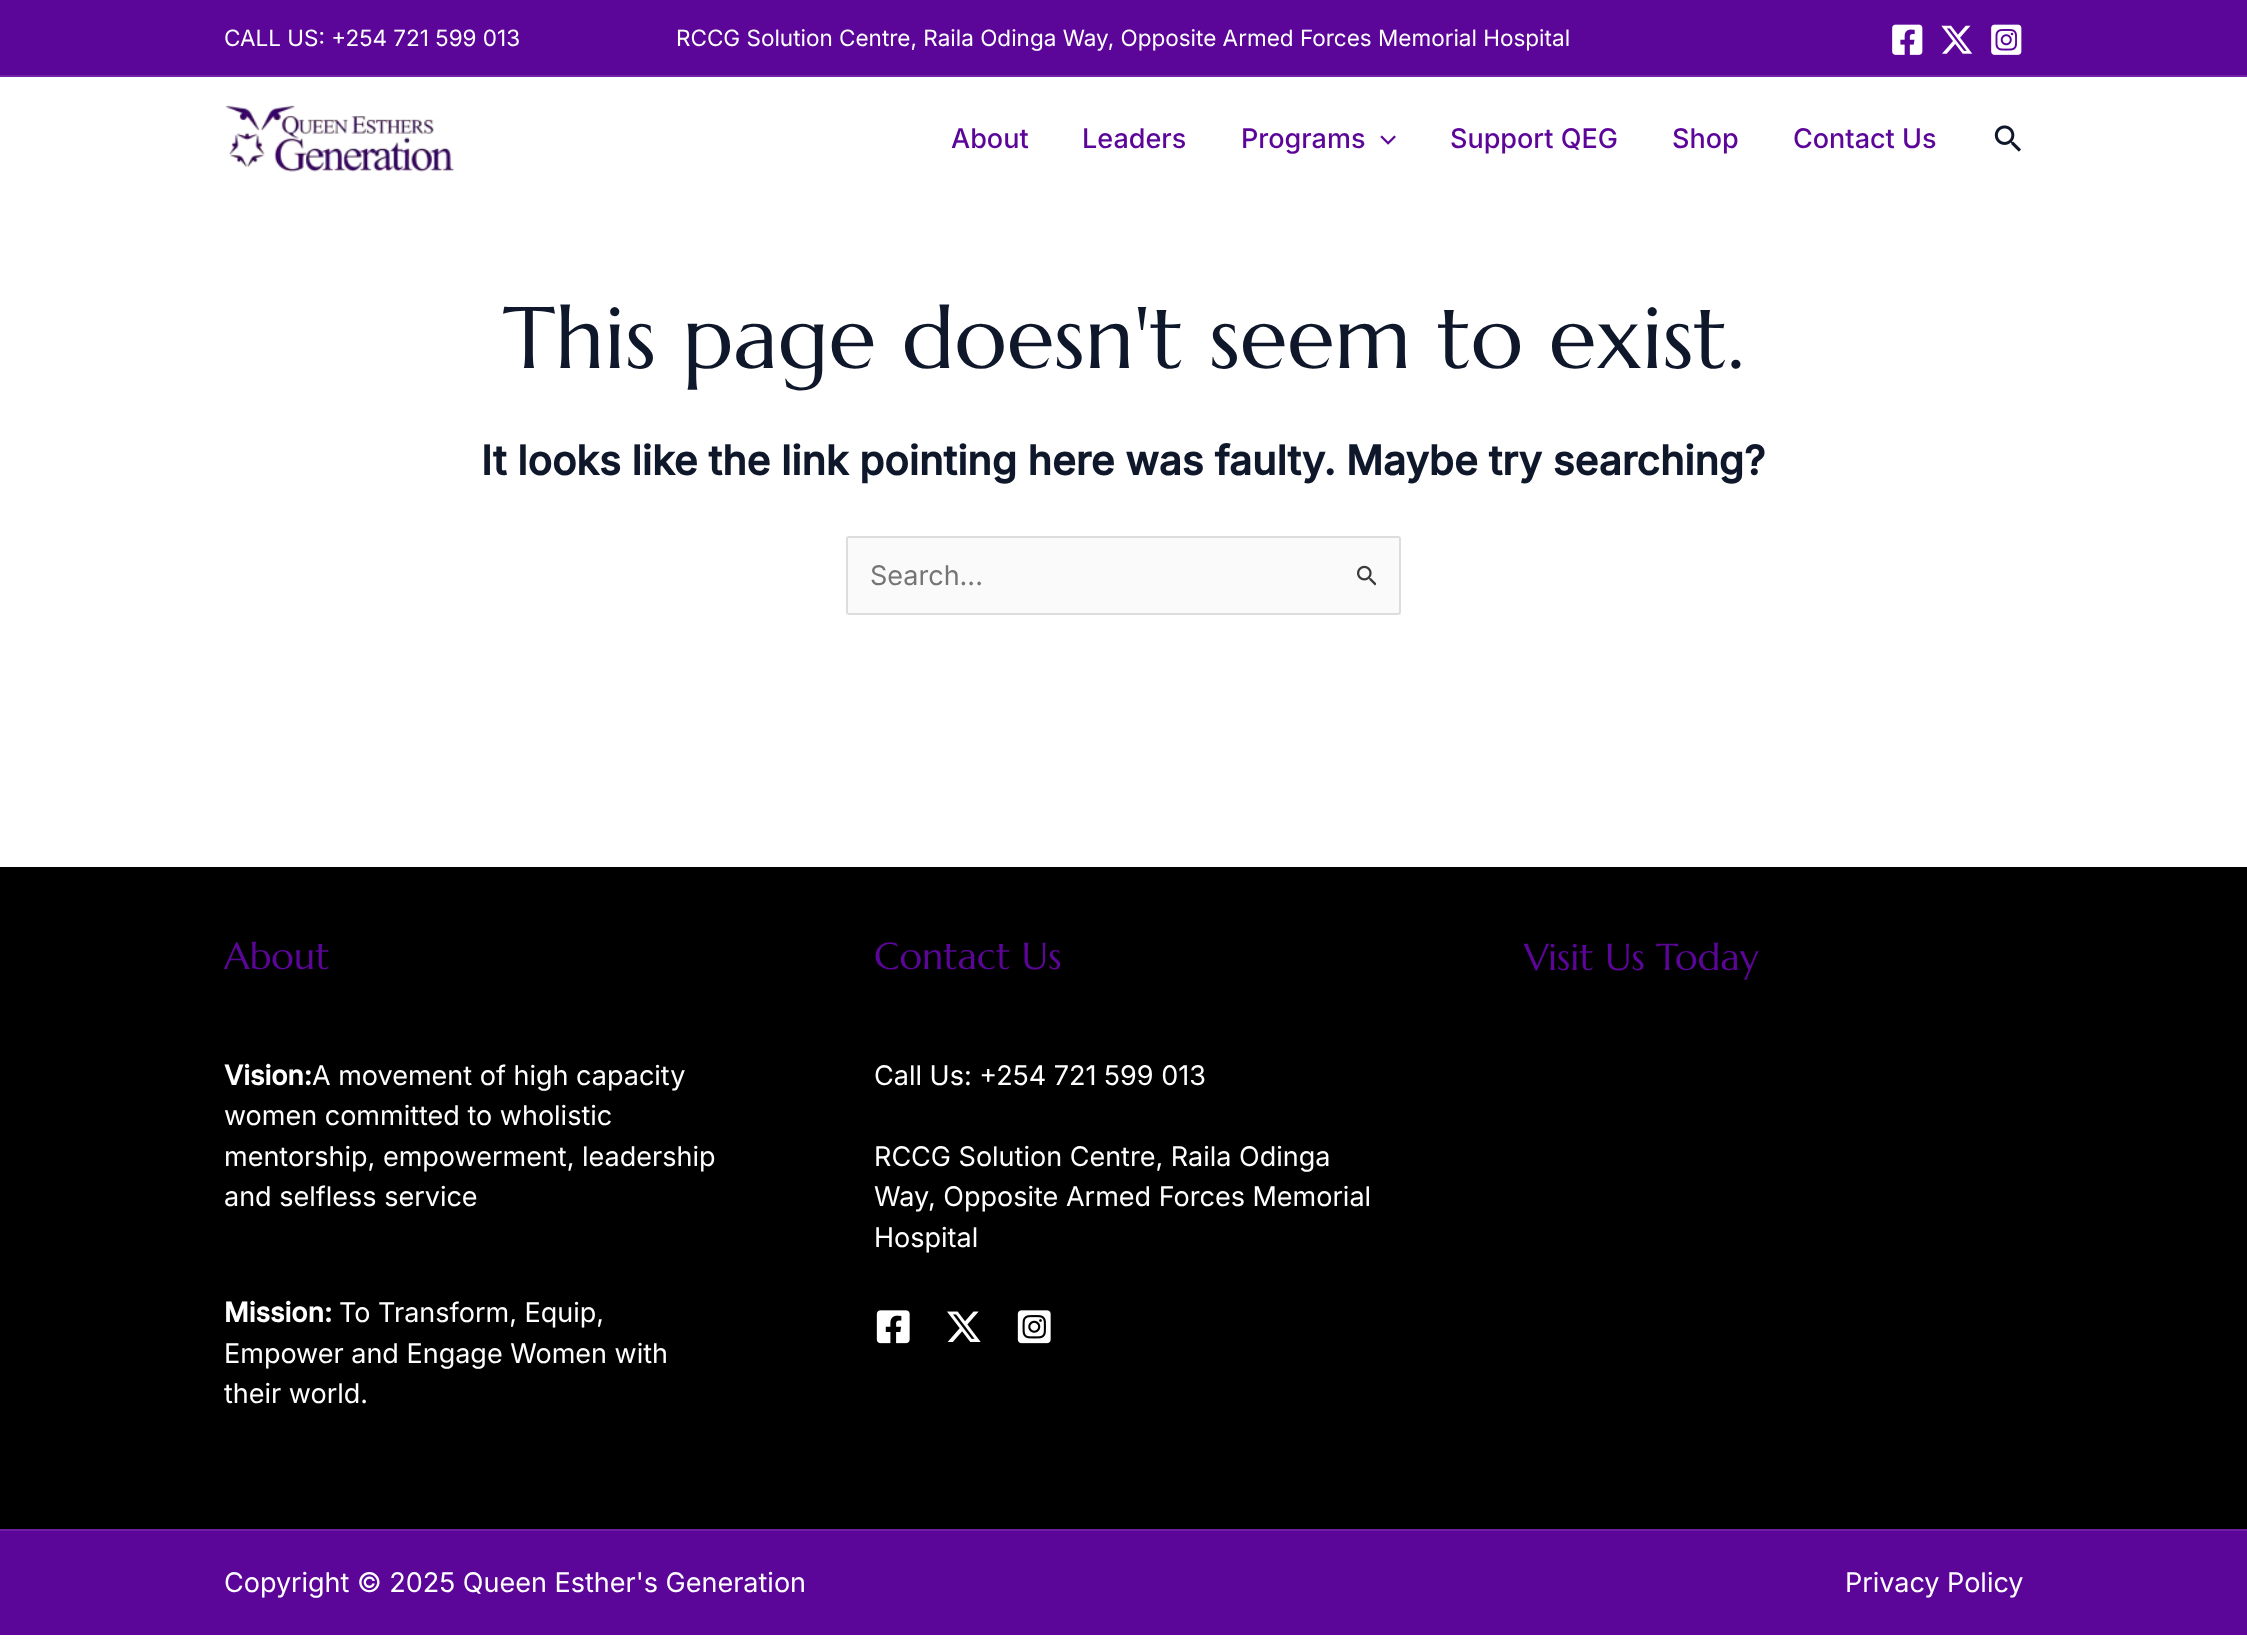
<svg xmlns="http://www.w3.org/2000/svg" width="2247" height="1649">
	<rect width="100%" height="100%" fill="#FFFFFF" />
	<rect x="0" y="0" width="2247" height="75" fill="#5C0599" />
	<rect x="0" y="75" width="2247" height="2" fill="#7023A5" />
	<g font-family="Inter" font-size="22.5" fill="#FFFFFF">
		<text x="224" y="46">CALL US: +254 721 599 013</text>
		<text x="676" y="46">RCCG Solution Centre, Raila Odinga Way, Opposite Armed Forces Memorial Hospital</text>
	</g>
	<image x="1892" y="24" width="31" height="31" href="assets/img1.png" />
	<image x="1941" y="25" width="32" height="29" href="assets/img2.png" />
	<image x="1991" y="24" width="31" height="31" href="assets/img3.png" />
	<image x="225" y="105" width="229" height="67" href="assets/img4.png" />
	<g font-family="Inter" font-size="27" font-weight="500" fill="#5C0599">
		<text x="951" y="148">About</text>
		<text x="1082" y="148">Leaders</text>
		<text x="1241" y="148">Programs</text>
	</g>
	<image x="1380" y="135" width="16" height="10" href="assets/img5.png" />
	<g font-family="Inter" font-size="27" font-weight="500" fill="#5C0599">
		<text x="1450" y="148">Support QEG</text>
		<text x="1672" y="148">Shop</text>
		<text x="1793" y="148">Contact Us</text>
	</g>
	<image x="1994" y="125" width="27" height="27" href="assets/img6.png" />
	<text x="503" y="368" font-family="Marcellus" font-size="87" fill="#0F172A">This page doesn't seem to exist.</text>
	<text x="481" y="475" font-family="Inter" font-size="40.5" font-weight="700" fill="#0F172A">It looks like the link pointing here was faulty. Maybe try searching?</text>
	<rect x="847" y="537" width="553" height="77" rx="2" fill="#FAFAFA" stroke="#DDDDDD" stroke-width="2" />
	<text x="870" y="585" font-family="Inter" font-size="27" fill="#757575">Search...</text>
	<image x="1357" y="565" width="19" height="21" href="assets/img7.png" />
	<rect x="0" y="867" width="2247" height="662" fill="#000000" />
	<text x="224" y="969" font-family="Marcellus" font-size="37.5" fill="#5C0599">About</text>
	<text x="224" y="1085" font-family="Inter" font-size="27" font-weight="700" fill="#FFFFFF">Vision:</text>
	<g font-family="Inter" font-size="27" fill="#FFFFFF">
		<text x="312" y="1085">A movement of high capacity</text>
		<text x="224" y="1125">women committed to wholistic</text>
		<text x="224" y="1166">mentorship, empowerment, leadership</text>
		<text x="224" y="1206">and selfless service</text>
	</g>
	<text x="224" y="1322" font-family="Inter" font-size="27" font-weight="700" fill="#FFFFFF">Mission:</text>
	<g font-family="Inter" font-size="27" fill="#FFFFFF">
		<text x="339" y="1322">To Transform, Equip,</text>
		<text x="224" y="1363">Empower and Engage Women with</text>
		<text x="224" y="1403">their world.</text>
	</g>
	<text x="874" y="969" font-family="Marcellus" font-size="37.5" fill="#5C0599">Contact Us</text>
	<g font-family="Inter" font-size="27" fill="#FFFFFF">
		<text x="874" y="1085">Call Us: +254 721 599 013</text>
		<text x="874" y="1166">RCCG Solution Centre, Raila Odinga</text>
		<text x="874" y="1206">Way, Opposite Armed Forces Memorial</text>
		<text x="874" y="1247">Hospital</text>
	</g>
	<image x="876" y="1310" width="34" height="34" href="assets/img8.png" />
	<image x="947" y="1311" width="34" height="31" href="assets/img9.png" />
	<image x="1017" y="1310" width="34" height="34" href="assets/img10.png" />
	<text x="1524" y="970" font-family="Marcellus" font-size="37.5" fill="#5C0599">Visit Us Today</text>
	<rect x="0" y="1531" width="2247" height="104" fill="#5C0599" />
	<rect x="0" y="1529" width="2247" height="2" fill="#6D1FA3" />
	<g font-family="Inter" font-size="27" fill="#FFFFFF">
		<text x="224" y="1592">Copyright © 2025 Queen Esther's Generation</text>
		<text x="1845" y="1592">Privacy Policy</text>
	</g>
</svg>
